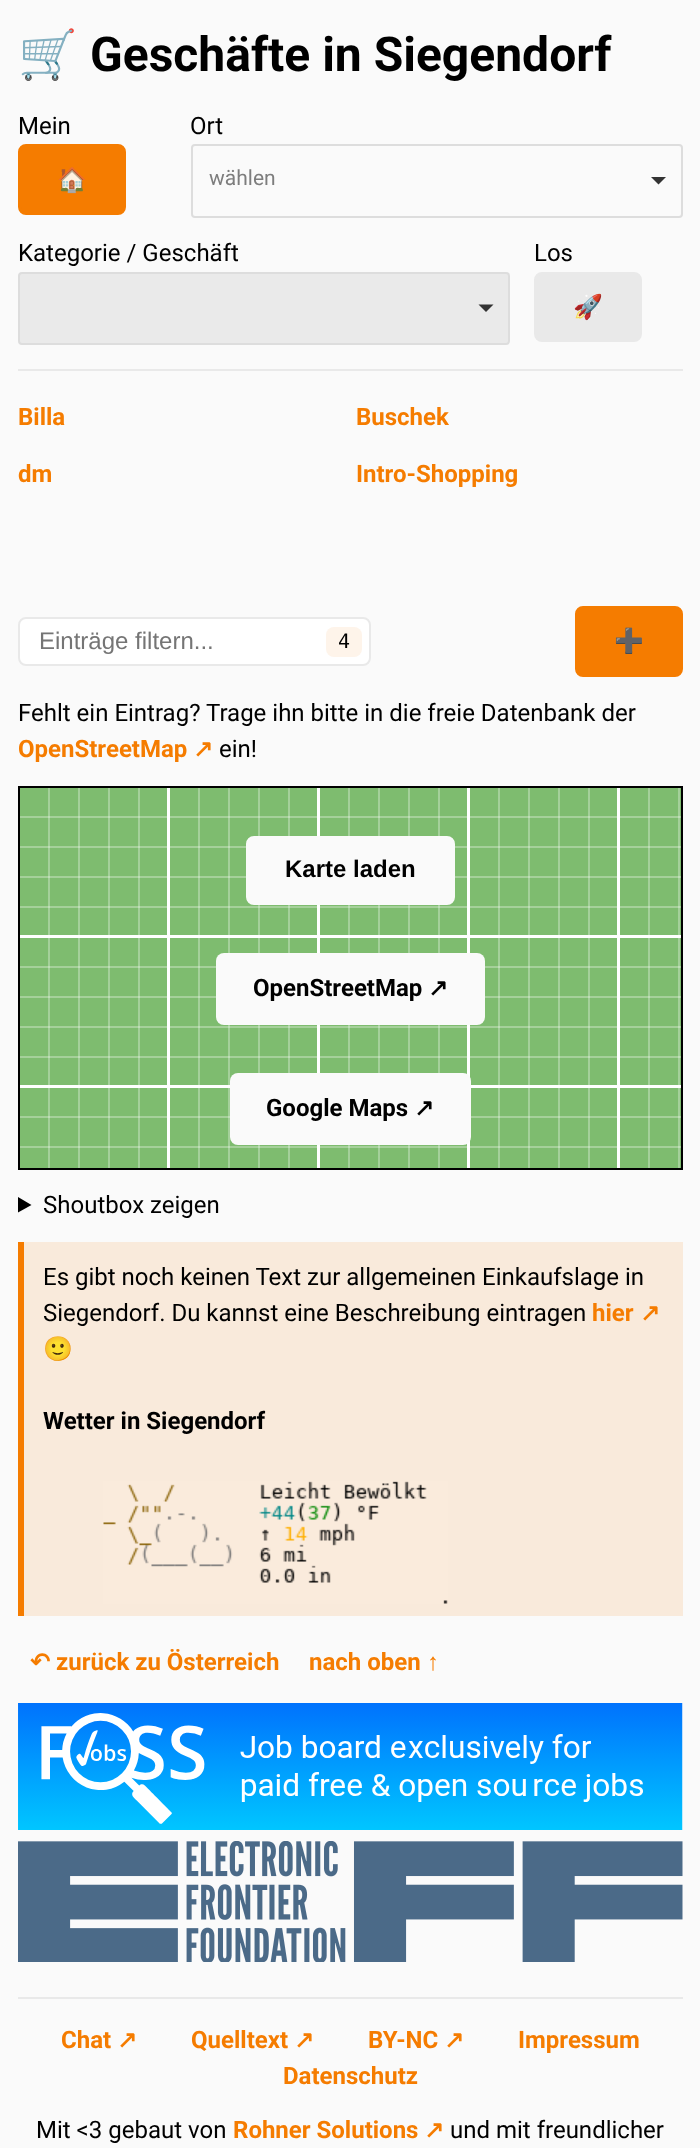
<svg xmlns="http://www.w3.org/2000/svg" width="700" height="2148">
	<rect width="100%" height="100%" fill="#FAFAFA" />
	<text x="18" y="71" font-family="Noto Color Emoji" font-size="48" font-weight="700" fill="#F57C00">🛒</text>
	<text x="90" y="71" font-family="Roboto" font-size="48" font-weight="700" fill="#000000">Geschäfte in Siegendorf</text>
	<text x="18" y="134" font-family="Roboto" font-size="24" fill="#000000">Mein</text>
	<rect x="19.5" y="145.5" width="105" height="68" rx="6.5" fill="#F57C00" stroke="#F57C00" stroke-width="3" />
	<text x="57" y="188" font-family="Noto Color Emoji" font-size="24" font-weight="700" fill="#FAFAFA">🏠</text>
	<text x="190" y="134" font-family="Roboto" font-size="24" fill="#000000">Ort</text>
	<rect x="192" y="145" width="490" height="72" rx="3" fill="none" stroke="#DDDDDD" stroke-width="2" />
	<text x="209" y="185" font-family="Roboto" font-size="21" fill="#7D7D7D">wählen</text>
	<path d="M651 177H666L658.5 184.5Z" fill="#333333" />
	<text x="18" y="261" font-family="Roboto" font-size="24" fill="#000000">Kategorie / Geschäft</text>
	<rect x="19" y="273" width="490" height="71" rx="3" fill="#EAEAEA" stroke="#DDDDDD" stroke-width="2" />
	<path d="M478.5 304.5H493.5L486 312Z" fill="#333333" />
	<text x="534" y="261" font-family="Roboto" font-size="24" fill="#000000">Los</text>
	<rect x="535.5" y="273.5" width="105" height="67" rx="6.5" fill="#E9E9E9" stroke="#E9E9E9" stroke-width="3" />
	<text x="573" y="315" font-family="Noto Color Emoji" font-size="24" font-weight="700" fill="#999999">🚀</text>
	<rect x="18" y="369" width="665" height="2" fill="#E9E9E9" />
	<g font-family="Roboto" font-size="24" font-weight="700" fill="#F57C00">
		<text x="18" y="425">Billa</text>
		<text x="356" y="425">Buschek</text>
		<text x="18" y="482">dm</text>
		<text x="356" y="482">Intro-Shopping</text>
	</g>
	<rect x="19" y="618" width="351" height="47" rx="7" fill="#FFFFFF" stroke="#E9E9E9" stroke-width="2" />
	<text x="39" y="649" font-family="Liberation Sans" font-size="24" fill="#757575">Einträge filtern...</text>
	<rect x="326" y="627" width="36" height="30" rx="8" fill="#FEF4EA" />
	<text x="338" y="648" font-family="DejaVu Sans Mono" font-size="20" fill="#000000">4</text>
	<rect x="576.5" y="607.5" width="105" height="68" rx="6.5" fill="#F57C00" stroke="#F57C00" stroke-width="3" />
	<text x="614" y="649" font-family="Noto Color Emoji" font-size="24" font-weight="700" fill="#FAFAFA">➕</text>
	<text x="18" y="721" font-family="Roboto" font-size="24" fill="#000000">Fehlt ein Eintrag? Trage ihn bitte in die freie Datenbank der</text>
	<text x="18" y="757" font-family="Roboto" font-size="24" font-weight="700" fill="#F57C00">OpenStreetMap</text>
	<text x="193" y="757" font-family="DejaVu Sans" font-size="24" font-weight="700" fill="#F57C00">↗</text>
	<text x="219" y="757" font-family="Roboto" font-size="24" fill="#000000">ein!</text>
	<rect x="20" y="788" width="661" height="380" fill="#7EBC6F" />
	<image x="48" y="788" width="632" height="380" href="assets/img1.png" />
	<rect x="18" y="816" width="665" height="2" fill="#FFFFFF" fill-opacity="0.3" />
	<rect x="18" y="846" width="665" height="2" fill="#FFFFFF" fill-opacity="0.3" />
	<rect x="18" y="876" width="665" height="2" fill="#FFFFFF" fill-opacity="0.3" />
	<rect x="18" y="906" width="665" height="2" fill="#FFFFFF" fill-opacity="0.3" />
	<rect x="18" y="966" width="665" height="2" fill="#FFFFFF" fill-opacity="0.3" />
	<rect x="18" y="996" width="665" height="2" fill="#FFFFFF" fill-opacity="0.3" />
	<rect x="18" y="1026" width="665" height="2" fill="#FFFFFF" fill-opacity="0.3" />
	<rect x="18" y="1056" width="665" height="2" fill="#FFFFFF" fill-opacity="0.3" />
	<rect x="18" y="1116" width="665" height="2" fill="#FFFFFF" fill-opacity="0.3" />
	<rect x="18" y="1146" width="665" height="2" fill="#FFFFFF" fill-opacity="0.3" />
	<rect x="167" y="786" width="3" height="384" fill="#FFFFFF" />
	<rect x="317" y="786" width="3" height="384" fill="#FFFFFF" />
	<rect x="467" y="786" width="3" height="384" fill="#FFFFFF" />
	<rect x="617" y="786" width="3" height="384" fill="#FFFFFF" />
	<rect x="18" y="935" width="665" height="3" fill="#FFFFFF" />
	<rect x="18" y="1085" width="665" height="3" fill="#FFFFFF" />
	<rect x="19" y="787" width="663" height="382" fill="none" stroke="#000000" stroke-width="2" />
	<rect x="247.5" y="837.5" width="206" height="66" rx="6.5" fill="#FAFAFA" stroke="#FAFAFA" stroke-width="3" />
	<text x="285" y="877" font-family="Liberation Sans" font-size="24" font-weight="700" fill="#000000">Karte laden</text>
	<rect x="216" y="953" width="269" height="72" rx="8" fill="#FAFAFA" />
	<text x="253" y="996" font-family="Roboto" font-size="24" font-weight="700" fill="#000000">OpenStreetMap</text>
	<text x="428" y="996" font-family="DejaVu Sans" font-size="24" font-weight="700" fill="#000000">↗</text>
	<rect x="230" y="1073" width="241" height="72" rx="8" fill="#FAFAFA" />
	<text x="266" y="1116" font-family="Roboto" font-size="24" font-weight="700" fill="#000000">Google Maps</text>
	<text x="414" y="1116" font-family="DejaVu Sans" font-size="24" font-weight="700" fill="#000000">↗</text>
	<path d="M18 1197L31.5 1205L18 1212.5Z" fill="#000000" />
	<text x="43" y="1213" font-family="Roboto" font-size="24" fill="#000000">Shoutbox zeigen</text>
	<rect x="24" y="1242" width="659" height="374" fill="#F9EADB" />
	<rect x="18" y="1242" width="6" height="374" fill="#F57C00" />
	<g font-family="Roboto" font-size="24" fill="#000000">
		<text x="43" y="1285">Es gibt noch keinen Text zur allgemeinen Einkaufslage in</text>
		<text x="43" y="1321">Siegendorf. Du kannst eine Beschreibung eintragen</text>
	</g>
	<text x="592" y="1321" font-family="Roboto" font-size="24" font-weight="700" fill="#F57C00">hier</text>
	<text x="640" y="1321" font-family="DejaVu Sans" font-size="24" font-weight="700" fill="#F57C00">↗</text>
	<text x="43" y="1357" font-family="Noto Color Emoji" font-size="24" fill="#000000">🙂</text>
	<text x="43" y="1429" font-family="Roboto" font-size="24" font-weight="700" fill="#000000">Wetter in Siegendorf</text>
	<image x="103" y="1481" width="345" height="123" href="assets/img2.png" />
	<text x="30" y="1670" font-family="DejaVu Sans" font-size="24" font-weight="700" fill="#F57C00">↶</text>
	<g font-family="Roboto" font-size="24" font-weight="700" fill="#F57C00">
		<text x="56" y="1670">zurück zu Österreich</text>
		<text x="309" y="1670">nach oben</text>
	</g>
	<text x="427" y="1670" font-family="Liberation Sans" font-size="24" font-weight="700" fill="#F57C00">↑</text>
	<image x="18" y="1703" width="665" height="127" href="assets/img3.png" />
	<image x="18" y="1841" width="665" height="121" href="assets/img4.png" />
	<rect x="18" y="1997" width="665" height="2" fill="#E9E9E9" />
	<text x="61" y="2048" font-family="Roboto" font-size="24" font-weight="700" fill="#F57C00">Chat</text>
	<text x="117" y="2048" font-family="DejaVu Sans" font-size="24" font-weight="700" fill="#F57C00">↗</text>
	<text x="191" y="2048" font-family="Roboto" font-size="24" font-weight="700" fill="#F57C00">Quelltext</text>
	<text x="294" y="2048" font-family="DejaVu Sans" font-size="24" font-weight="700" fill="#F57C00">↗</text>
	<text x="368" y="2048" font-family="Roboto" font-size="24" font-weight="700" fill="#F57C00">BY-NC</text>
	<text x="444" y="2048" font-family="DejaVu Sans" font-size="24" font-weight="700" fill="#F57C00">↗</text>
	<g font-family="Roboto" font-size="24" font-weight="700" fill="#F57C00">
		<text x="518" y="2048">Impressum</text>
		<text x="283" y="2084">Datenschutz</text>
	</g>
	<text x="36" y="2138" font-family="Roboto" font-size="24" fill="#000000">Mit &lt;3 gebaut von</text>
	<text x="233" y="2138" font-family="Roboto" font-size="24" font-weight="700" fill="#F57C00">Rohner Solutions</text>
	<text x="424" y="2138" font-family="DejaVu Sans" font-size="24" font-weight="700" fill="#F57C00">↗</text>
	<text x="450" y="2138" font-family="Roboto" font-size="24" fill="#000000">und mit freundlicher</text>
</svg>
